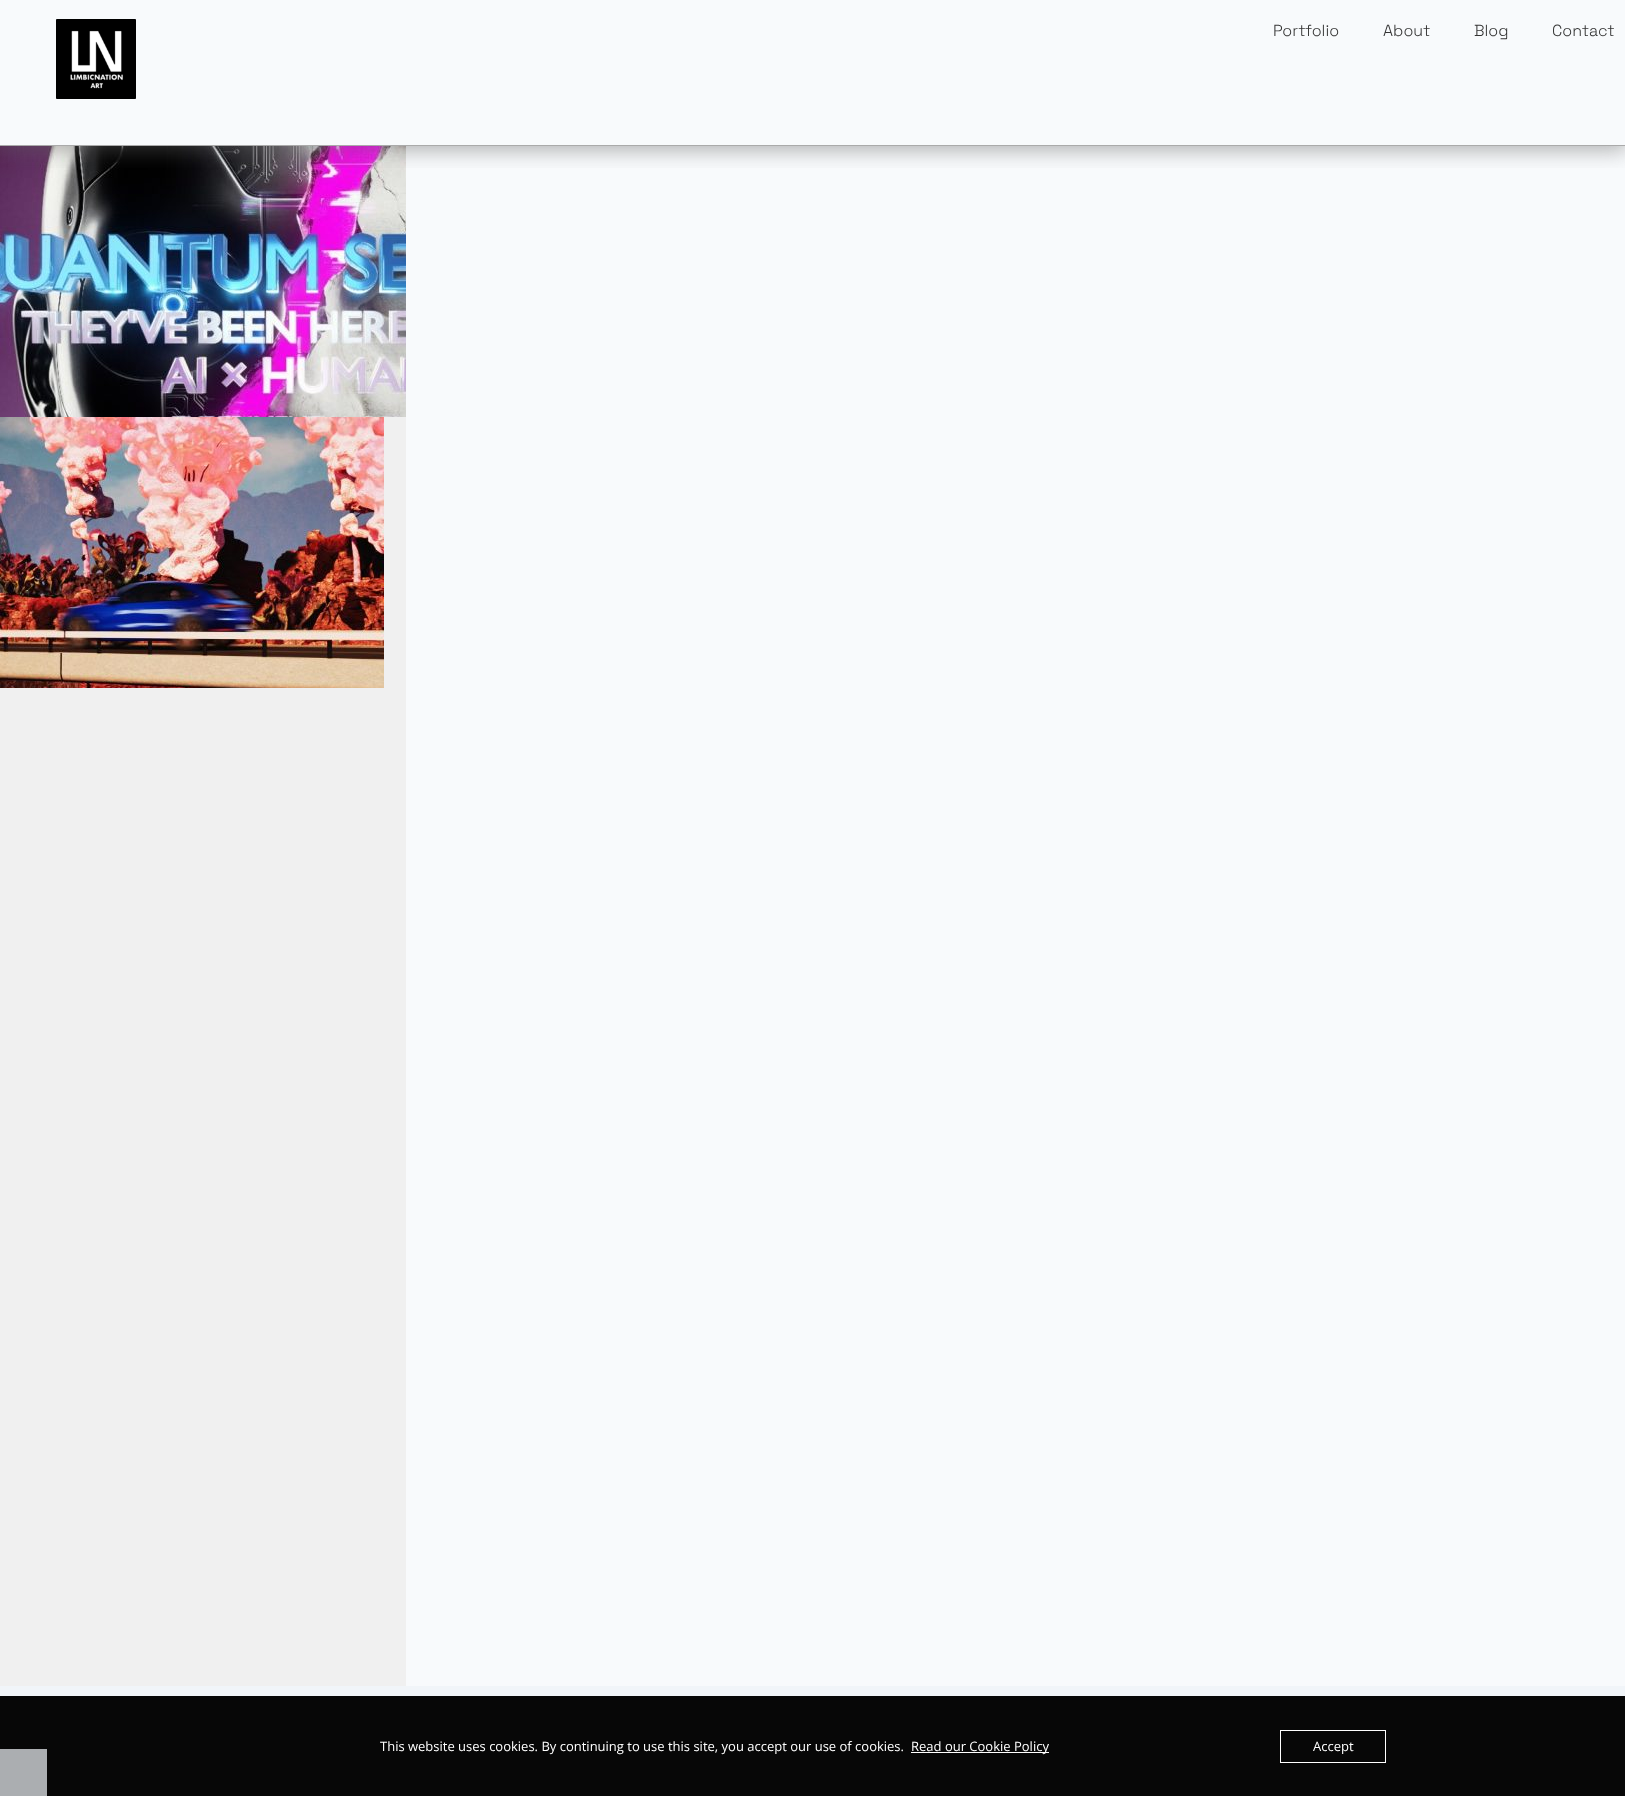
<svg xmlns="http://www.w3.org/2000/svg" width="1625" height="1796">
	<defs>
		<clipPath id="clip1"><rect x="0" y="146" width="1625" height="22" /></clipPath>
	</defs>
	<rect width="100%" height="100%" fill="#F8FAFC" />
	<image x="0" y="146" width="406" height="271" href="assets/img2.png" />
	<g clip-path="url(#clip1)">
		<rect x="-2" y="0" width="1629" height="150" fill="#646464" fill-opacity="0.5" filter="blur(10.5px)" />
	</g>
	<rect x="0" y="145" width="1625" height="1" fill="#AAAAAA" />
	<image x="56" y="19" width="80" height="80" href="assets/img1.png" />
	<g font-family="Space Grotesk" font-size="16" font-weight="300" fill="#333333">
		<text x="1273" y="36">Portfolio</text>
		<text x="1383" y="36">About</text>
		<text x="1474" y="36">Blog</text>
		<text x="1552" y="36">Contact</text>
	</g>
	<rect x="384" y="417" width="22" height="271" fill="#F0F0F0" />
	<image x="0" y="417" width="384" height="271" href="assets/img3.png" />
	<rect x="0" y="688" width="406" height="998" fill="#F0F0F0" />
	<rect x="0" y="1696" width="1625" height="100" fill="#070707" />
	<rect x="0" y="1749" width="47" height="47" fill="#ABAEB1" />
	<rect x="0" y="1686" width="1625" height="10" fill="#F1F5F9" />
	<text x="380" y="1751" font-family="Open Sans" font-size="13" fill="#FFFFFF">This website uses cookies. By continuing to use this site, you accept our use of cookies.</text>
	<rect x="911" y="1752" width="138" height="1" fill="#FFFFFF" />
	<text x="911" y="1751" font-family="Open Sans" font-size="13" fill="#FFFFFF">Read our Cookie Policy</text>
	<rect x="1280.5" y="1730.5" width="105" height="32" fill="none" stroke="#FFFFFF" />
	<text x="1313" y="1751" font-family="Open Sans" font-size="13" fill="#FFFFFF">Accept</text>
</svg>
